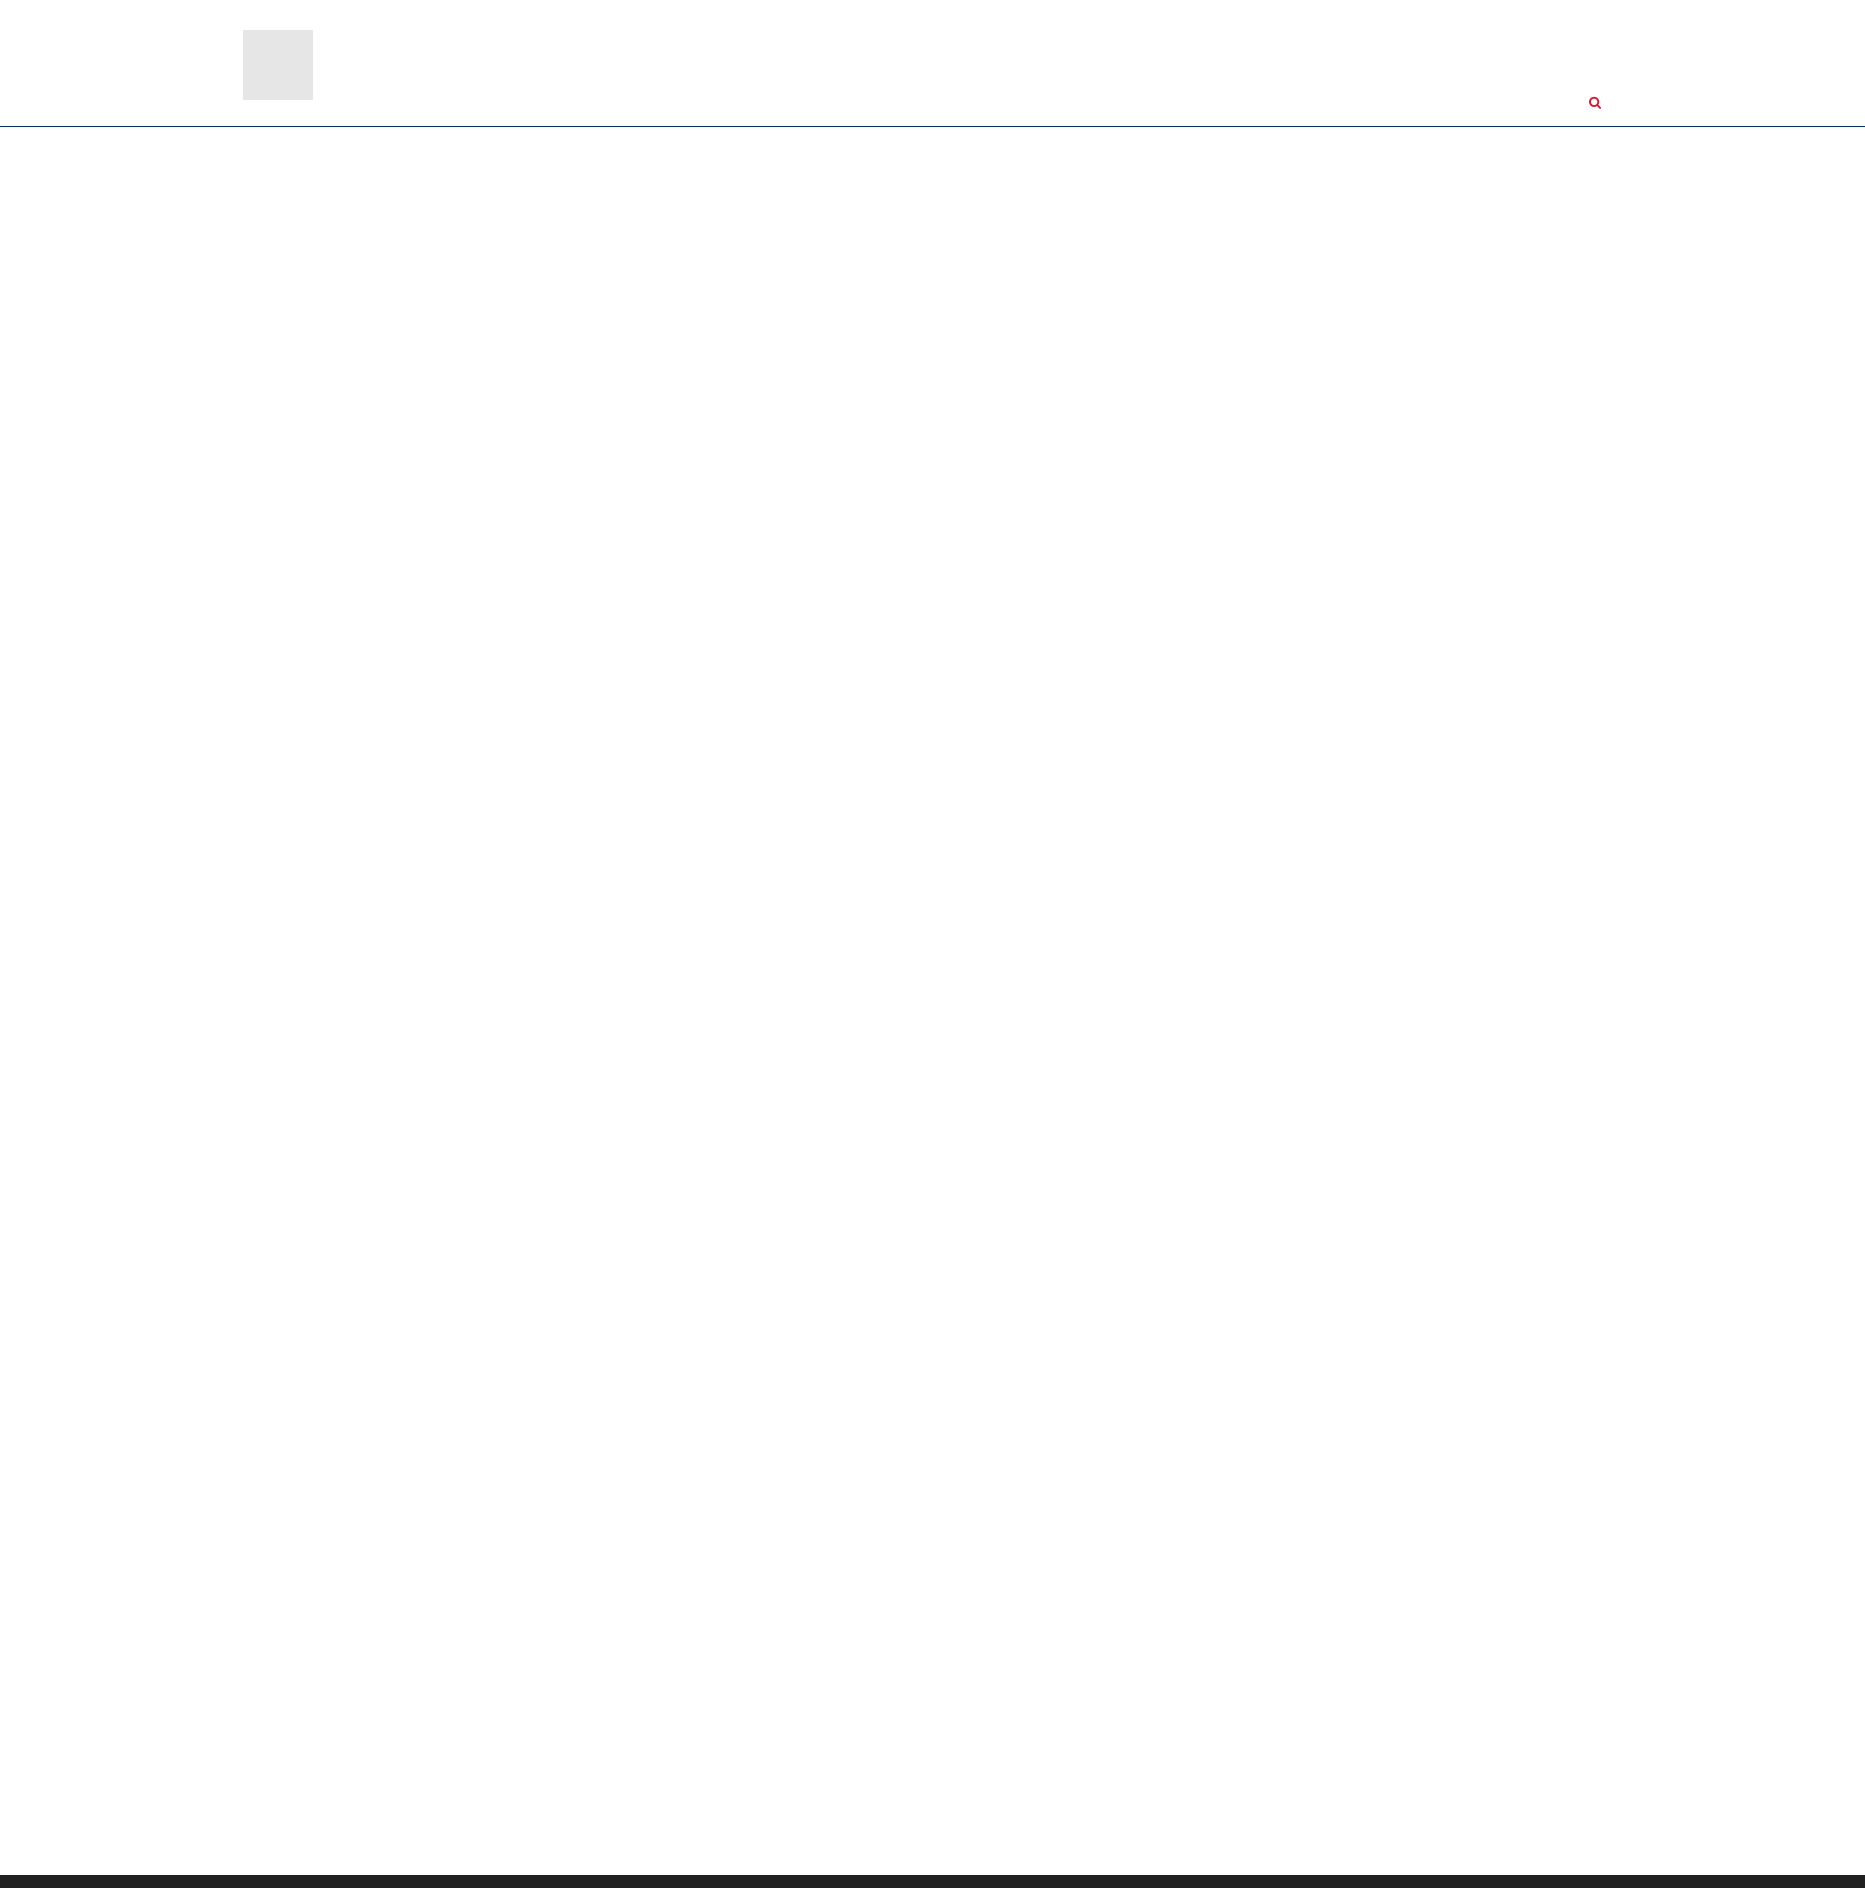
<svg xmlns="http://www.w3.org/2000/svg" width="1865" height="1888">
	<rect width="100%" height="100%" fill="#FFFFFF" />
	<rect x="0" y="126" width="1865" height="1" fill="#043556" />
	<rect x="243" y="30" width="70" height="70" fill="#E6E6E6" />
	<image x="1589" y="96" width="12" height="13" href="assets/img1.png" />
	<rect x="0" y="1875" width="1865" height="13" fill="#212121" />
</svg>
